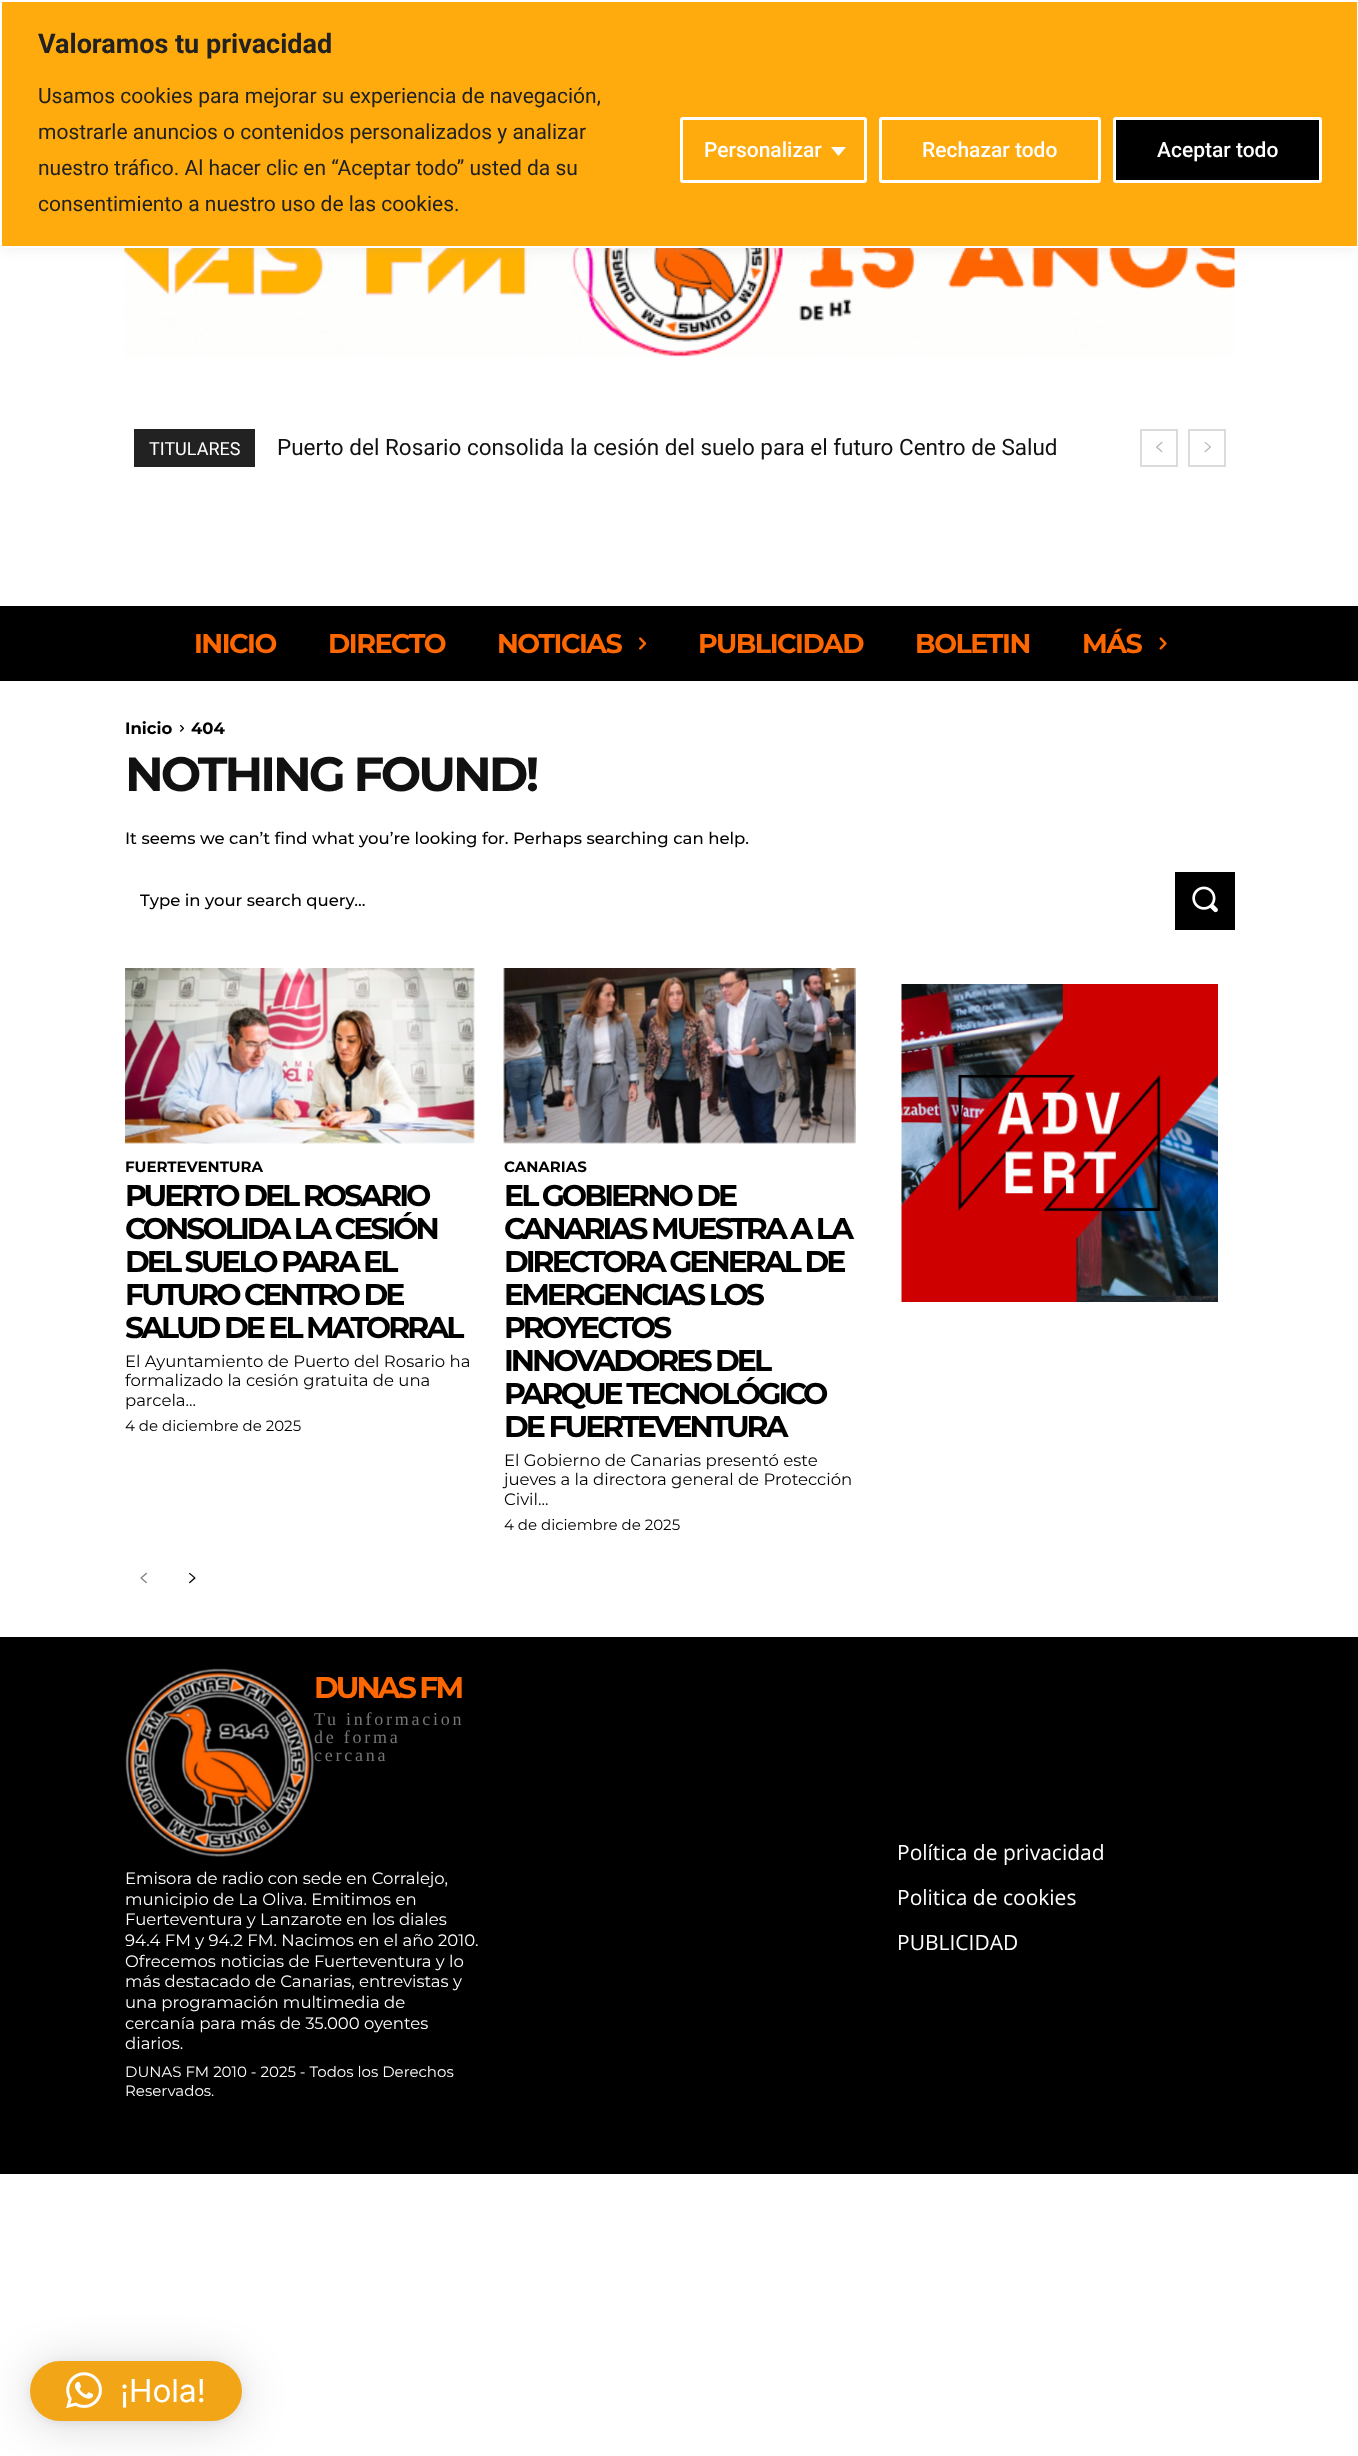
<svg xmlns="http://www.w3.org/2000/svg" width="1358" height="2456">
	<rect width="100%" height="100%" fill="#FFFFFF" />
	<image x="124" y="248" width="1111" height="109" href="assets/img1.png" />
	<rect x="0" y="-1" width="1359" height="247" fill="#ACABAB" fill-opacity="0.3" filter="blur(7.5px)" />
	<rect x="1" y="1" width="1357" height="246" fill="#FFAA0D" stroke="#FFFFFF" stroke-width="2" />
	<text x="38" y="53" font-family="Roboto" font-size="27" font-weight="700" fill="#212121">Valoramos tu privacidad</text>
	<g font-family="Roboto" font-size="21" fill="#212121">
		<text x="38" y="103">Usamos cookies para mejorar su experiencia de navegación,</text>
		<text x="38" y="139">mostrarle anuncios o contenidos personalizados y analizar</text>
		<text x="38" y="175">nuestro tráfico. Al hacer clic en “Aceptar todo” usted da su</text>
		<text x="38" y="211">consentimiento a nuestro uso de las cookies.</text>
	</g>
	<rect x="681.5" y="118.5" width="184" height="63" rx="1.5" fill="none" stroke="#FFFFFF" stroke-width="3" />
	<text x="704" y="157" font-family="Roboto" font-size="21" font-weight="500" fill="#FFFFFF">Personalizar</text>
	<path d="M831 147H846L838.5 156Z" fill="#FFFFFF" />
	<rect x="880.5" y="118.5" width="219" height="63" rx="1.5" fill="none" stroke="#FFFFFF" stroke-width="3" />
	<text x="922" y="157" font-family="Roboto" font-size="21" font-weight="500" fill="#FFFFFF">Rechazar todo</text>
	<rect x="1114.5" y="118.5" width="206" height="63" rx="1.5" fill="#000000" stroke="#FFFFFF" stroke-width="3" />
	<text x="1157" y="157" font-family="Roboto" font-size="21" font-weight="500" fill="#FFFFFF">Aceptar todo</text>
	<rect x="134" y="429" width="121" height="38" fill="#222222" />
	<text x="149" y="455" font-family="Roboto" font-size="18" fill="#FFFFFF">TITULARES</text>
	<text x="277" y="455" font-family="Roboto" font-size="22.5" fill="#111111">Puerto del Rosario consolida la cesión del suelo para el futuro Centro de Salud</text>
	<rect x="1141" y="430" width="36" height="36" fill="none" stroke="#DCDCDC" stroke-width="2" />
	<image x="1156" y="441" width="7" height="12" href="assets/img2.png" />
	<rect x="1189" y="430" width="36" height="36" fill="none" stroke="#DCDCDC" stroke-width="2" />
	<image x="1204" y="442" width="7" height="11" href="assets/img3.png" />
	<rect x="0" y="606" width="1358" height="75" fill="#000000" />
	<g font-family="Montserrat" font-size="27" font-weight="700" letter-spacing="-1.5" fill="#FC6701">
		<text x="194" y="653">INICIO</text>
		<text x="328" y="653">DIRECTO</text>
		<text x="497" y="653">NOTICIAS</text>
	</g>
	<image x="639" y="637" width="8" height="13" href="assets/img4.png" />
	<g font-family="Montserrat" font-size="27" font-weight="700" letter-spacing="-1.5" fill="#FC6701">
		<text x="698" y="653">PUBLICIDAD</text>
		<text x="915" y="653">BOLETIN</text>
		<text x="1082" y="653">MÁS</text>
	</g>
	<image x="1159" y="637" width="8" height="13" href="assets/img5.png" />
	<text x="125" y="734" font-family="Montserrat" font-size="16.5" font-weight="700" fill="#000000">Inicio</text>
	<image x="180" y="724" width="4" height="8" href="assets/img6.png" />
	<text x="191" y="734" font-family="Montserrat" font-size="16.5" font-weight="700" fill="#000000">404</text>
	<text x="125" y="791" font-family="Montserrat" font-size="48" font-weight="700" letter-spacing="-3" fill="#111111">NOTHING FOUND!</text>
	<g font-family="Montserrat" font-size="16.5" font-weight="500" fill="#000000">
		<text x="125" y="844">It seems we can’t find what you’re looking for. Perhaps searching can help.</text>
		<text x="140" y="906">Type in your search query...</text>
	</g>
	<rect x="1175" y="872" width="60" height="58" fill="#000000" />
	<image x="1192" y="886" width="26" height="27" href="assets/img7.png" />
	<image x="125" y="968" width="350" height="176" href="assets/img8.png" />
	<text x="125" y="1172" font-family="Montserrat" font-size="15" font-weight="700" fill="#000000">FUERTEVENTURA</text>
	<g font-family="Montserrat" font-size="30" font-weight="700" letter-spacing="-3" fill="#000000">
		<text x="125" y="1206">PUERTO DEL ROSARIO</text>
		<text x="125" y="1239">CONSOLIDA LA CESIÓN</text>
		<text x="125" y="1272">DEL SUELO PARA EL</text>
		<text x="125" y="1305">FUTURO CENTRO DE</text>
		<text x="125" y="1338">SALUD DE EL MATORRAL</text>
	</g>
	<g font-family="Montserrat" font-size="16.5" fill="#000000">
		<text x="125" y="1367">El Ayuntamiento de Puerto del Rosario ha</text>
		<text x="125" y="1386">formalizado la cesión gratuita de una</text>
		<text x="125" y="1406">parcela...</text>
	</g>
	<text x="125" y="1431" font-family="Montserrat" font-size="15" fill="#000000">4 de diciembre de 2025</text>
	<image x="503" y="968" width="353" height="176" href="assets/img9.png" />
	<text x="504" y="1172" font-family="Montserrat" font-size="15" font-weight="700" fill="#000000">CANARIAS</text>
	<g font-family="Montserrat" font-size="30" font-weight="700" letter-spacing="-3" fill="#000000">
		<text x="504" y="1206">EL GOBIERNO DE</text>
		<text x="504" y="1239">CANARIAS MUESTRA A LA</text>
		<text x="504" y="1272">DIRECTORA GENERAL DE</text>
		<text x="504" y="1305">EMERGENCIAS LOS</text>
		<text x="504" y="1338">PROYECTOS</text>
		<text x="504" y="1371">INNOVADORES DEL</text>
		<text x="504" y="1404">PARQUE TECNOLÓGICO</text>
		<text x="504" y="1437">DE FUERTEVENTURA</text>
	</g>
	<g font-family="Montserrat" font-size="16.5" fill="#000000">
		<text x="504" y="1466">El Gobierno de Canarias presentó este</text>
		<text x="504" y="1485">jueves a la directora general de Protección</text>
		<text x="504" y="1505">Civil...</text>
	</g>
	<text x="504" y="1530" font-family="Montserrat" font-size="15" fill="#000000">4 de diciembre de 2025</text>
	<image x="140" y="1572" width="7" height="12" href="assets/img10.png" />
	<image x="189" y="1572" width="7" height="12" href="assets/img11.png" />
	<image x="901" y="984" width="317" height="318" href="assets/img12.png" />
	<rect x="0" y="1637" width="1358" height="537" fill="#000000" />
	<image x="125" y="1668" width="189" height="189" href="assets/img13.png" />
	<text x="314" y="1698" font-family="Montserrat" font-size="30" font-weight="700" letter-spacing="-3" fill="#FC6701">DUNAS FM</text>
	<g font-family="Liberation Serif" font-size="18" letter-spacing="2.75" fill="#767676">
		<text x="314" y="1725">Tu informacion</text>
		<text x="314" y="1743">de forma</text>
		<text x="314" y="1761">cercana</text>
	</g>
	<g font-family="Montserrat" font-size="16.5" fill="#FFFFFF">
		<text x="125" y="1884">Emisora de radio con sede en Corralejo,</text>
		<text x="125" y="1905">municipio de La Oliva. Emitimos en</text>
		<text x="125" y="1925">Fuerteventura y Lanzarote en los diales</text>
		<text x="125" y="1946">94.4 FM y 94.2 FM. Nacimos en el año 2010.</text>
		<text x="125" y="1967">Ofrecemos noticias de Fuerteventura y lo</text>
		<text x="125" y="1987">más destacado de Canarias, entrevistas y</text>
		<text x="125" y="2008">una programación multimedia de</text>
		<text x="125" y="2029">cercanía para más de 35.000 oyentes</text>
		<text x="125" y="2049">diarios.</text>
	</g>
	<g font-family="Montserrat" font-size="15" fill="#FFFFFF">
		<text x="125" y="2077">DUNAS FM 2010 - 2025 - Todos los Derechos</text>
		<text x="125" y="2096">Reservados.</text>
	</g>
	<g font-family="Open Sans" font-size="21" fill="#FFFFFF">
		<text x="897" y="1860">Política de privacidad</text>
		<text x="897" y="1905">Politica de cookies</text>
		<text x="897" y="1950">PUBLICIDAD</text>
	</g>
	<rect x="30" y="2364" width="212" height="60" rx="30" fill="#000000" fill-opacity="0.16" filter="blur(24px)" />
	<rect x="30" y="2363" width="212" height="60" rx="30" fill="#000000" fill-opacity="0.06" filter="blur(4.5px)" />
	<rect x="30" y="2361" width="212" height="60" rx="30" fill="#F2A516" />
	<image x="66" y="2372" width="36" height="37" href="assets/img14.png" />
	<text x="120" y="2402" font-family="Inter" font-size="31.5" fill="#FFFFFF">¡Hola!</text>
</svg>
